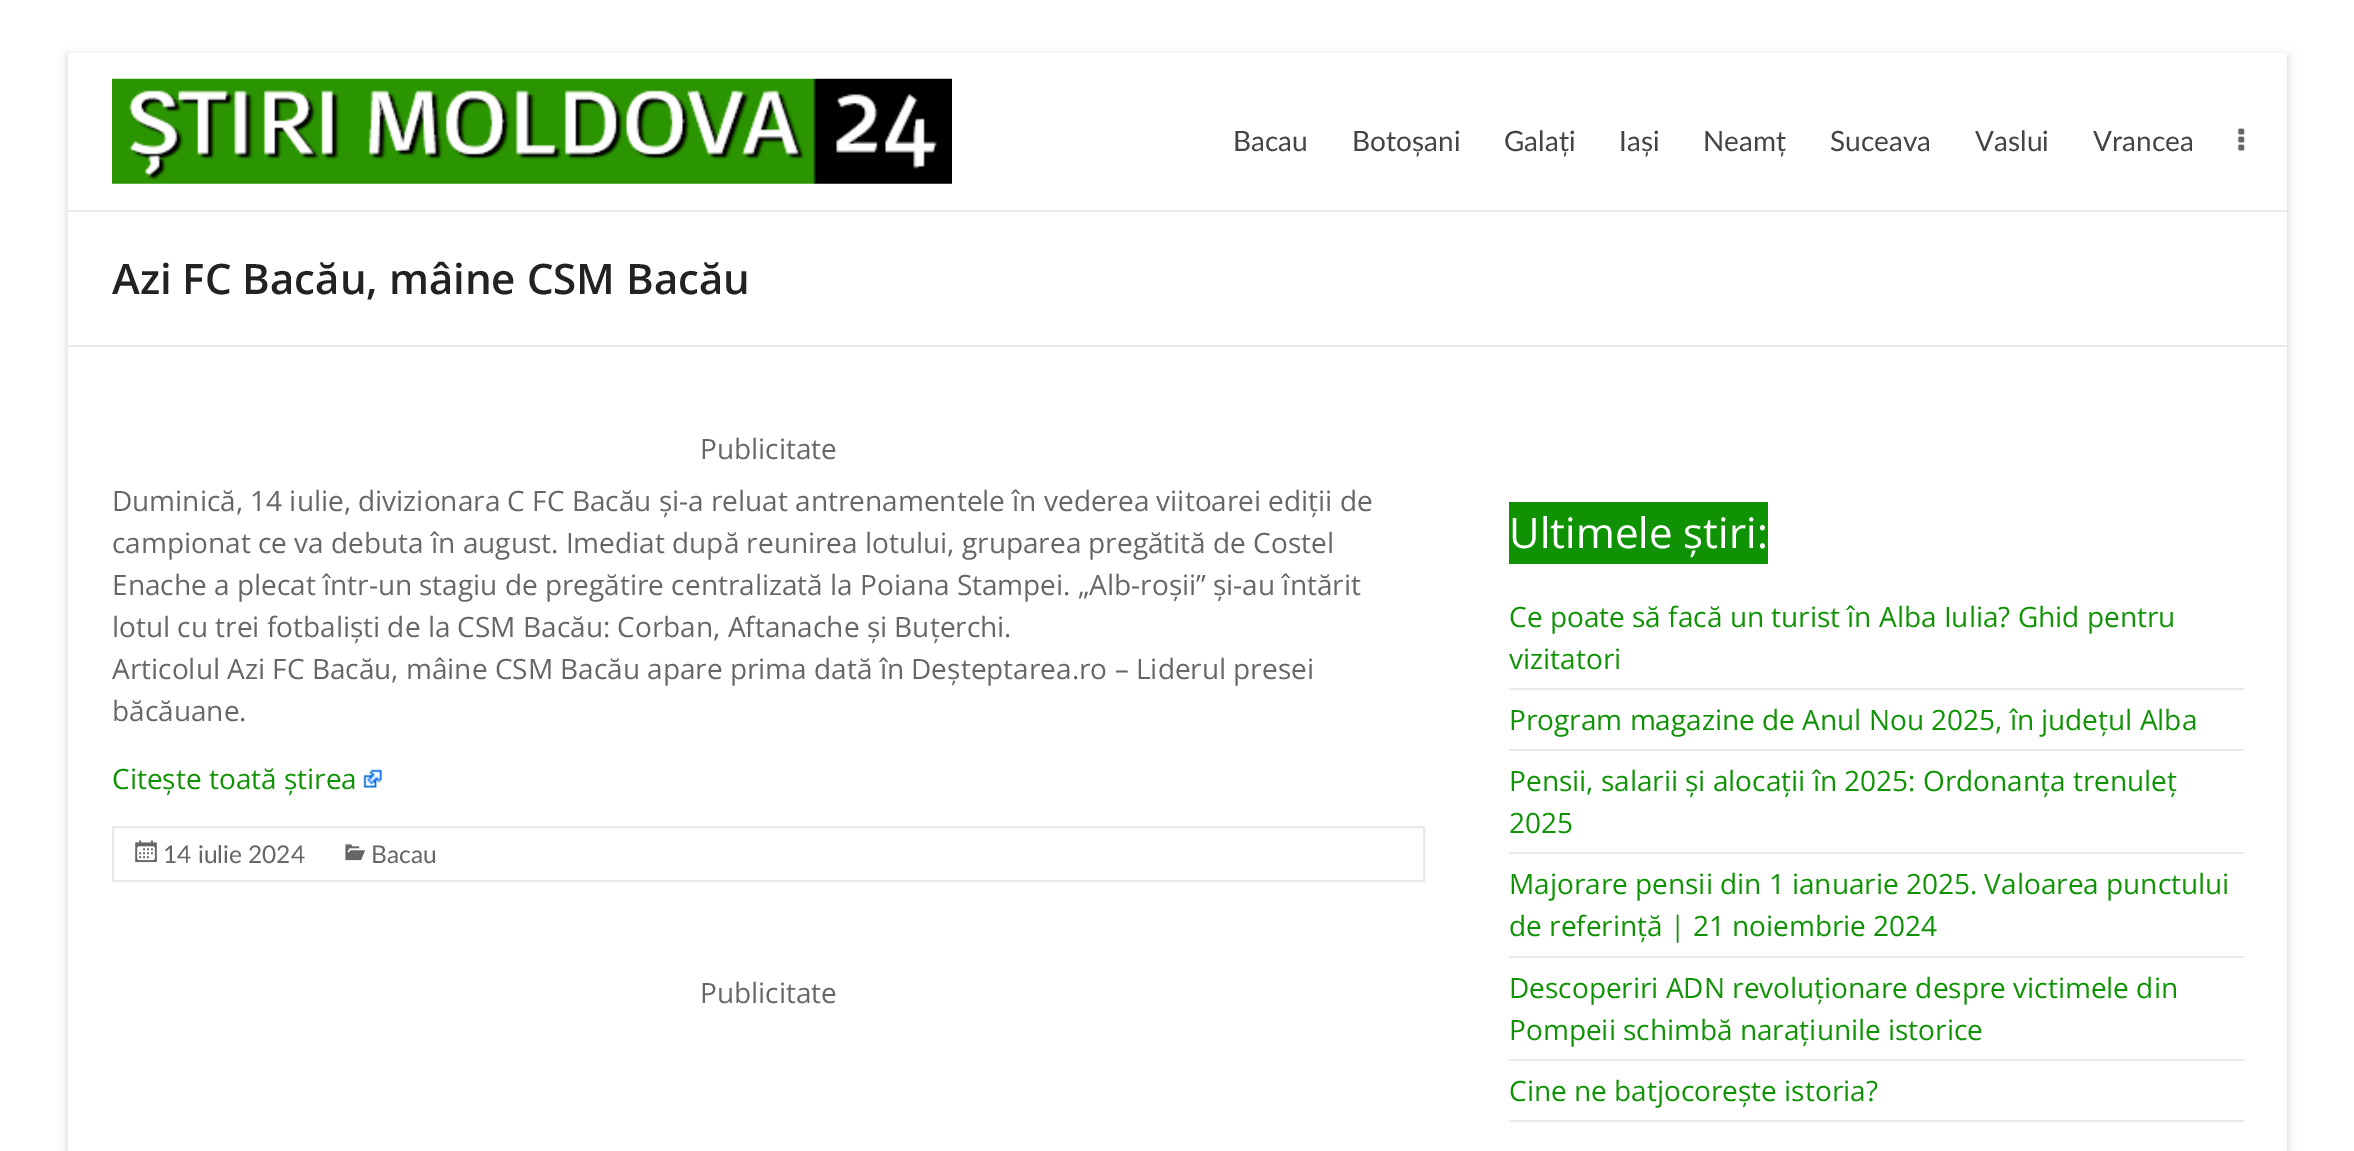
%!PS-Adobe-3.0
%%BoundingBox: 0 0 2354 1151
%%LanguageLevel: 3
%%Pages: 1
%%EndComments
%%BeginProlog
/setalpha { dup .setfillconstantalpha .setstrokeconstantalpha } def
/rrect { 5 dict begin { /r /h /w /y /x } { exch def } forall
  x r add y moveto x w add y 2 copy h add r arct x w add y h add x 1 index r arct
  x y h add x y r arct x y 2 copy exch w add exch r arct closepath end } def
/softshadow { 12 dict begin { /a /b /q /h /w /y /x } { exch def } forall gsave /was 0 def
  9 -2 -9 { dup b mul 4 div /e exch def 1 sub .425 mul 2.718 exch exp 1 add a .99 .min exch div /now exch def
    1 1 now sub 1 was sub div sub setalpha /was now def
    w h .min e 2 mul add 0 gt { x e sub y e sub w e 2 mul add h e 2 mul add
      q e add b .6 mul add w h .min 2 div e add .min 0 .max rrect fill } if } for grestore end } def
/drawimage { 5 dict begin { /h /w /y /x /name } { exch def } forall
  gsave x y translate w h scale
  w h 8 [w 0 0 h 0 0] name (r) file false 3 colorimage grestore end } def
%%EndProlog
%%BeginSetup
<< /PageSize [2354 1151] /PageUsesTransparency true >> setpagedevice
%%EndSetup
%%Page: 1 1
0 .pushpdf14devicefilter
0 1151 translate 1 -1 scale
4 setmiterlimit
1 setgray
0 0 2354 1151 rectfill
0.392 setgray
68 56 2219 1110 0 5 0.3 softshadow
1 setgray
68 53 2219 1098 rectfill
0.918 setgray
68 210 2219 2 rectfill
(images/1.raw) 112 78 840 106 drawimage
(images/2.raw) 2238 128 7 23 drawimage
68 345 2219 2 rectfill
(images/3.raw) 363 769 19 19 drawimage
2 setlinewidth
113 827 1311 54 rectstroke
(images/4.raw) 135 840 22 23 drawimage
(images/5.raw) 345 844 20 17 drawimage
0.059 0.576 0.02 setrgbcolor
1509 502 259 62 rectfill
0.918 setgray
1509 688 735 2 rectfill
1509 749 735 2 rectfill
1509 852 735 2 rectfill
1509 956 735 2 rectfill
1509 1059 735 2 rectfill
1509 1120 735 2 rectfill
/Lato-Regular [28 0 0 -28 0 0] selectfont
0.267 setgray
1233 151 moveto (Bacau) show
1352 151 moveto (Botoșani) show
1504 151 moveto (Galați) show
1619 151 moveto (Iași) show
1703 151 moveto (Neamț) show
1830 151 moveto (Suceava) show
1975 151 moveto (Vaslui) show
2093 151 moveto (Vrancea) show
/OpenSans-SemiBold [42 0 0 -42 0 0] selectfont
0.133 setgray
112 294 moveto (Azi FC Bacău, mâine CSM Bacău) show
/OpenSans-Regular [28 0 0 -28 0 0] selectfont
0.4 setgray
700 459 moveto (Publicitate) show
112 511 moveto (Duminică, 14 iulie, divizionara C FC Bacău și-a reluat antrenamentele în vederea viitoarei ediții de) show
112 553 moveto (campionat ce va debuta în august. Imediat după reunirea lotului, gruparea pregătită de Costel) show
112 595 moveto (Enache a plecat într-un stagiu de pregătire centralizată la Poiana Stampei. „Alb-roșii” și-au întărit) show
112 637 moveto (lotul cu trei fotbaliști de la CSM Bacău: Corban, Aftanache și Buțerchi.) show
112 679 moveto (Articolul Azi FC Bacău, mâine CSM Bacău apare prima dată în Deșteptarea.ro – Liderul presei) show
112 721 moveto (băcăuane.) show
0.059 0.576 0.02 setrgbcolor
112 789 moveto (Citește toată știrea) show
/Lato-Regular [24.5 0 0 -24.5 0 0] selectfont
0.4 setgray
163 863 moveto (14 iulie 2024) show
371 863 moveto (Bacau) show
/OpenSans-Regular [28 0 0 -28 0 0] selectfont
700 1003 moveto (Publicitate) show
/OpenSans-Regular [42 0 0 -42 0 0] selectfont
1 setgray
1509 548 moveto (Ultimele știri:) show
/OpenSans-Regular [28 0 0 -28 0 0] selectfont
0.059 0.576 0.02 setrgbcolor
1509 627 moveto (Ce poate să facă un turist în Alba Iulia? Ghid pentru) show
1509 669 moveto (vizitatori) show
1509 730 moveto (Program magazine de Anul Nou 2025, în județul Alba) show
1509 791 moveto (Pensii, salarii și alocații în 2025: Ordonanța trenuleț) show
1509 833 moveto (2025) show
1509 894 moveto (Majorare pensii din 1 ianuarie 2025. Valoarea punctului) show
1509 936 moveto (de referință | 21 noiembrie 2024) show
1509 998 moveto (Descoperiri ADN revoluționare despre victimele din) show
1509 1040 moveto (Pompeii schimbă narațiunile istorice) show
1509 1101 moveto (Cine ne batjocorește istoria?) show
.poppdf14devicefilter showpage
%%EOF
